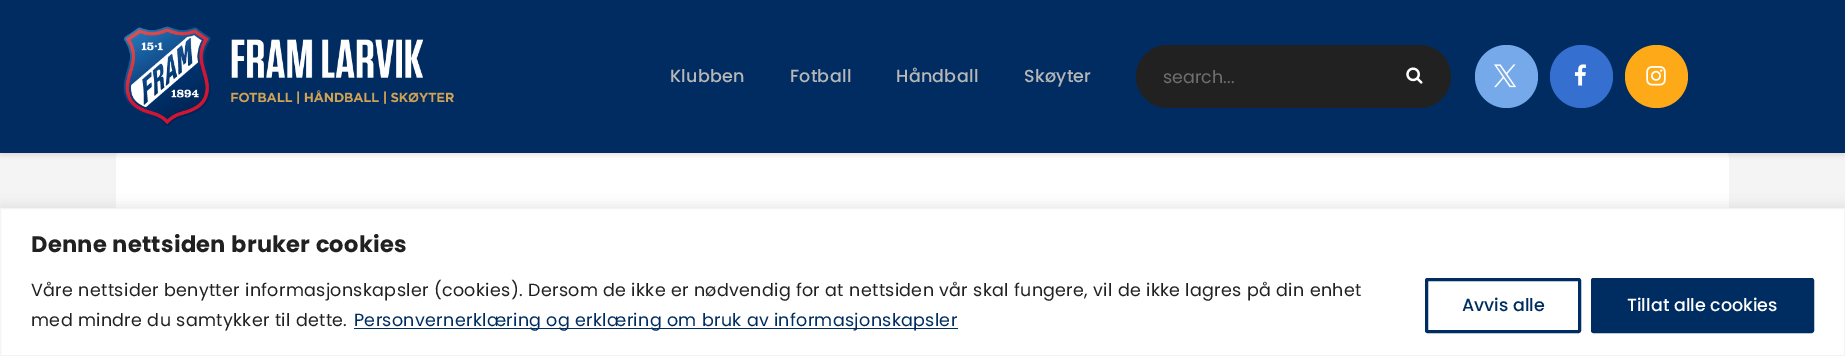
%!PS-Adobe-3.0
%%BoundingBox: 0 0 1845 356
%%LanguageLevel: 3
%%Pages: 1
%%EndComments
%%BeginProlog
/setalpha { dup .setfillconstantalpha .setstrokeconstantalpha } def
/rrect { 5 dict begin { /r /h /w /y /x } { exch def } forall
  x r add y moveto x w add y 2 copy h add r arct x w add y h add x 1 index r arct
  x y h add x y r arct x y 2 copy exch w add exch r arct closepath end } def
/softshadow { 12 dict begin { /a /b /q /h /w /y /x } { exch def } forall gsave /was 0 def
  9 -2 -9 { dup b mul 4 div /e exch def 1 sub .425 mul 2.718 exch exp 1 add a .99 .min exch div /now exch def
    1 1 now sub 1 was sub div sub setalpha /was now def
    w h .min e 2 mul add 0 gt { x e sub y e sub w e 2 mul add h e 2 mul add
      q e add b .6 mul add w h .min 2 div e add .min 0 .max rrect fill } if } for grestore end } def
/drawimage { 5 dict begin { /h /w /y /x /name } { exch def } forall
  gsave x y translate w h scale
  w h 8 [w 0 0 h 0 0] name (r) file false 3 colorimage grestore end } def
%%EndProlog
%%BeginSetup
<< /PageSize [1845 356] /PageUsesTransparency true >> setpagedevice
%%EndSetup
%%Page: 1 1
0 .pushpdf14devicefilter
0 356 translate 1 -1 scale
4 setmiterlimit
0.957 setgray
0 0 1845 356 rectfill
1 setgray
116 153 1613 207 4 rrect fill
0 setgray
0 4 1845 152 0 2 0.08 softshadow
0 0.173 0.38 setrgbcolor
0 0 1845 153 rectfill
(images/1.raw) 123 26 331 100 drawimage
0.129 setgray
1136 45 315 63 31.5 rrect fill
(images/2.raw) 1406 67 17 17 drawimage
0.463 0.663 0.918 setrgbcolor
newpath 1506.5 76.5 31.5 0 360 arc closepath fill
(images/3.raw) 1494 64 22 24 drawimage
0.208 0.435 0.812 setrgbcolor
newpath 1581.5 76.5 31.5 0 360 arc closepath fill
(images/4.raw) 1574 64 12 22 drawimage
0.996 0.663 0.09 setrgbcolor
newpath 1656.5 76.5 31.5 0 360 arc closepath fill
(images/5.raw) 1646 66 20 20 drawimage
0.675 0.671 0.671 setrgbcolor
0 206 1845 149 0 6 0.3 softshadow
1 setgray
newpath 0.5 208.5 moveto 1844.5 208.5 lineto 1844.5 355.5 lineto 0.5 355.5 lineto closepath gsave fill grestore
0.957 setgray
stroke
0 0.176 0.38 setrgbcolor
354 328 604 1 rectfill
3 setlinewidth
1426.5 279.5 153 52 1 rrect stroke
1592.5 279.5 220 52 1 rrect gsave fill grestore
stroke
/Poppins-Medium [17.5 0 0 -17.5 0 0] selectfont
0.718 setgray
670 82 moveto 0.25 0 (Klubben) ashow
790 82 moveto 0.25 0 (Fotball) ashow
896 82 moveto 0.25 0 (Håndball) ashow
1024 82 moveto 0.25 0 (Skøyter) ashow
/Poppins-Regular [17.5 0 0 -17.5 0 0] selectfont
0.435 setgray
1163 83 moveto (search...) show
/Poppins-Bold [22.5 0 0 -22.5 0 0] selectfont
0.129 setgray
31 252 moveto 0.33 0 (Denne nettsiden bruker cookies) ashow
/Poppins-Regular [17.5 0 0 -17.5 0 0] selectfont
31 296 moveto 0.33 0 (Våre nettsider benytter informasjonskapsler \(cookies\). Dersom de ikke er nødvendig for at nettsiden vår skal fungere, vil de ikke lagres på din enhet) ashow
31 326 moveto 0.33 0 (med mindre du samtykker til dette.) ashow
0 0.176 0.38 setrgbcolor
354 326 moveto 0.33 0 (Personvernerklæring og erklæring om bruk av informasjonskapsler) ashow
/Poppins-Medium [17.5 0 0 -17.5 0 0] selectfont
1462 311 moveto (Avvis alle) show
1 setgray
1627 311 moveto (Tillat alle cookies) show
.poppdf14devicefilter showpage
%%EOF
